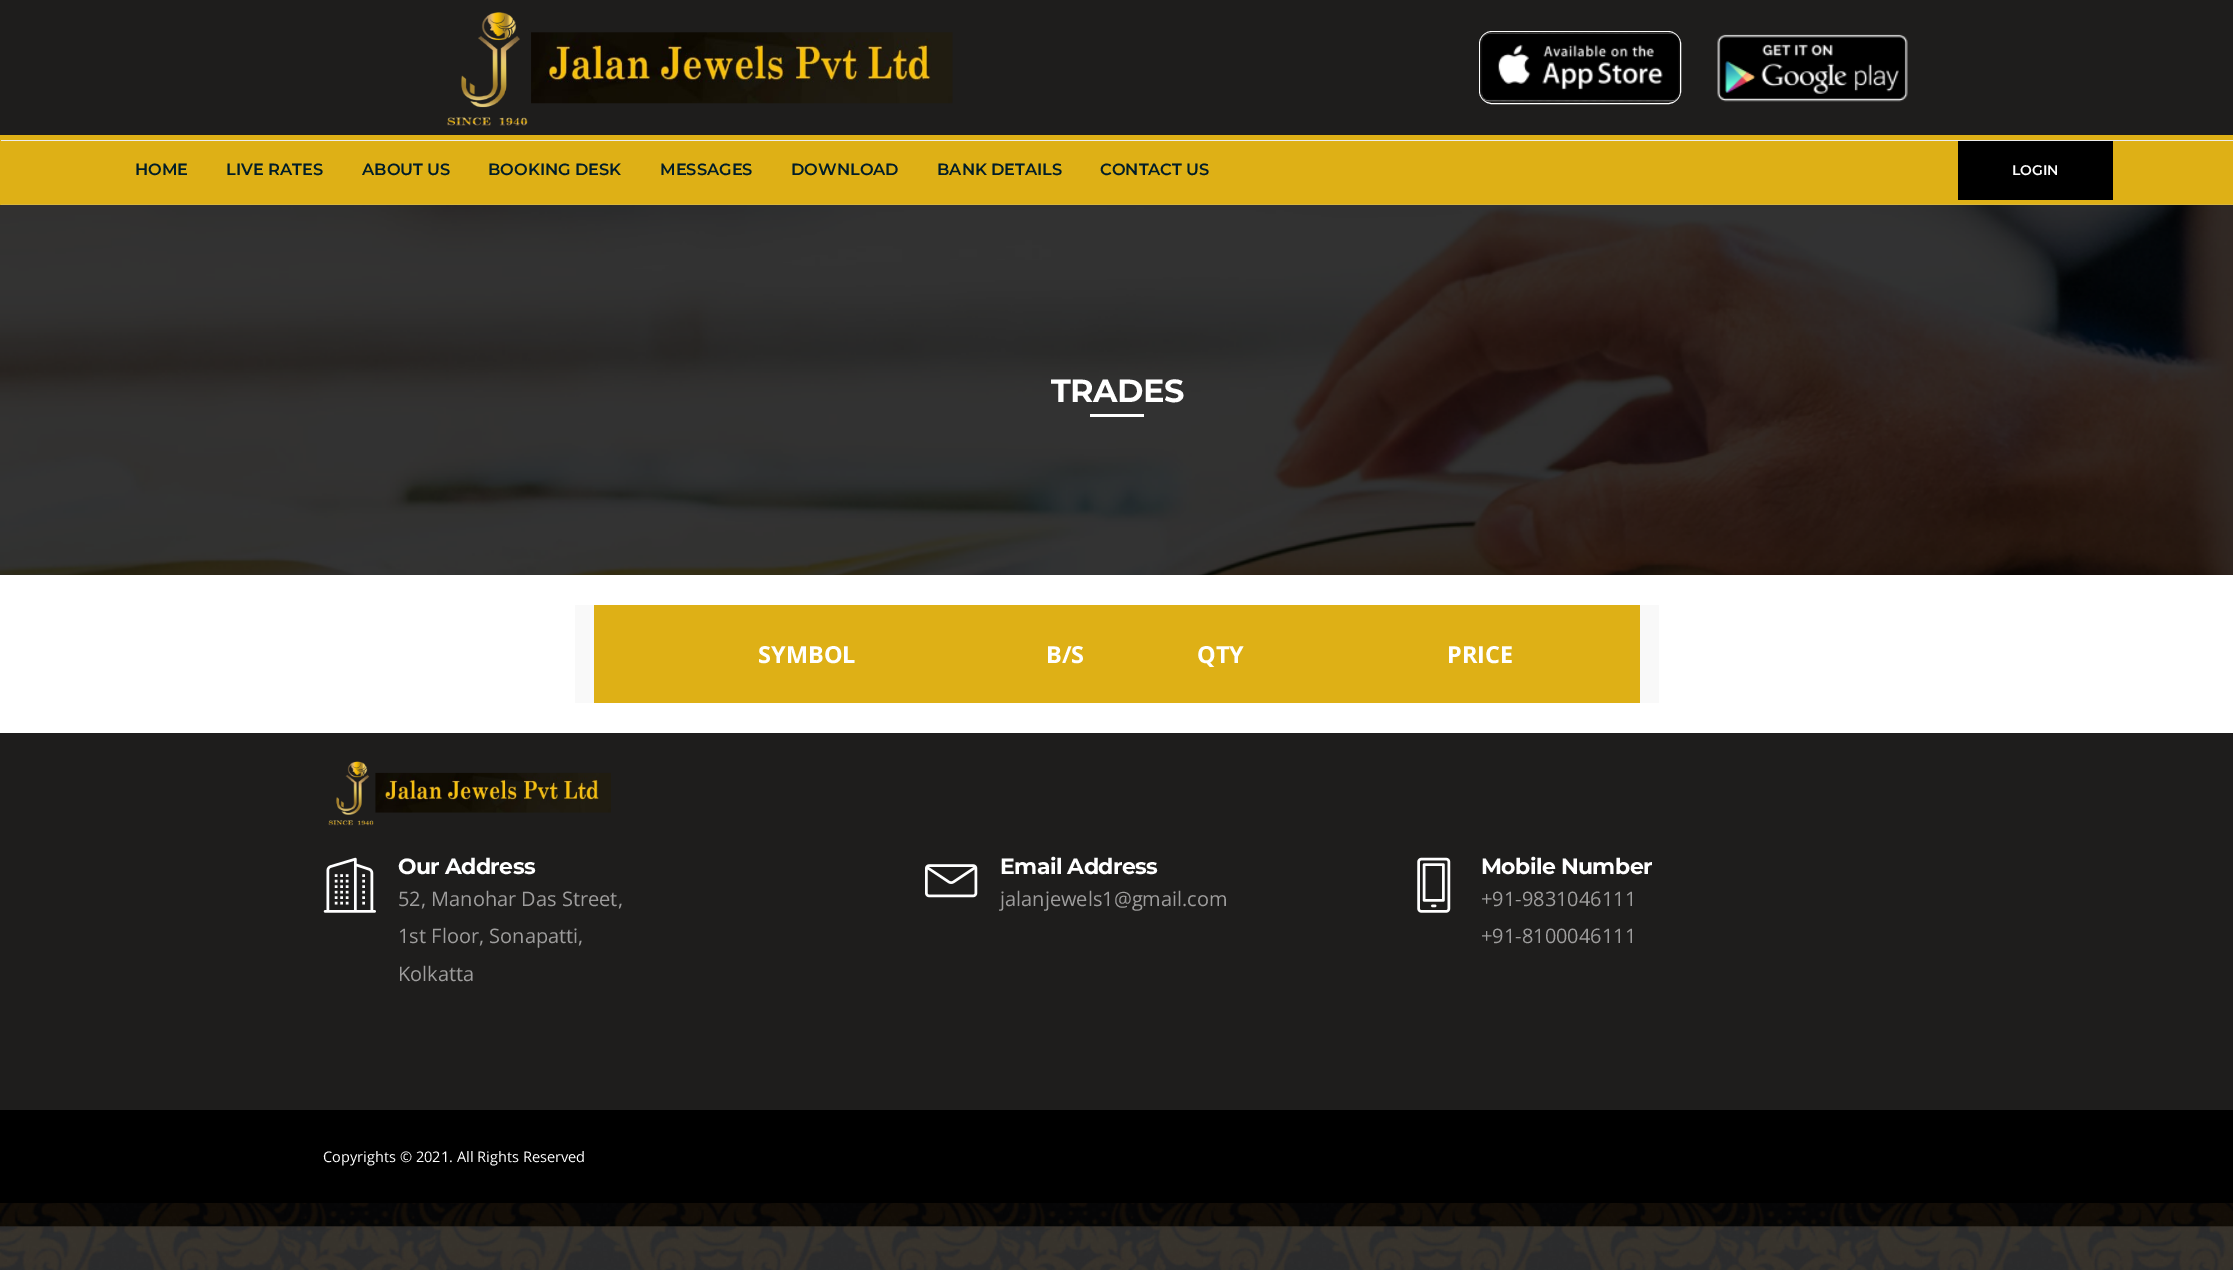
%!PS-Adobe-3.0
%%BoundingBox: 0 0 2233 1270
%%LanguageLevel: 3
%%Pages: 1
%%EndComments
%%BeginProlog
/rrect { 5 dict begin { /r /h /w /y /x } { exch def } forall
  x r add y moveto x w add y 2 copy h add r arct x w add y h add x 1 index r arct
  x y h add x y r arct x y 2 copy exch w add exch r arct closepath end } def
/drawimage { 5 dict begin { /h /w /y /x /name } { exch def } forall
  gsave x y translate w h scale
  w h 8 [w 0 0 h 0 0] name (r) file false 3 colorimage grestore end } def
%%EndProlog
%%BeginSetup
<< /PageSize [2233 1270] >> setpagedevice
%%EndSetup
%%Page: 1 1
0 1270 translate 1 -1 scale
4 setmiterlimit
1 setgray
0 0 2233 1270 rectfill
(images/1.raw) 0 1203 2233 67 drawimage
0.118 0.114 0.11 setrgbcolor
0 0 2233 135 rectfill
(images/2.raw) 447 12 506 114 drawimage
1 setgray
1479.5 31.5 201 72 12.5 rrect stroke
(images/3.raw) 1480 32 200 70 drawimage
(images/4.raw) 1717 34 191 68 drawimage
0.871 0.69 0.086 setrgbcolor
0 135 2233 70 rectfill
0.929 0.929 0.933 setrgbcolor
1 140 2232 1 rectfill
0 setgray
1958 141 155 59 rectfill
0.855 0.714 0.227 setrgbcolor
1 204 2232 1 rectfill
(images/5.raw) 0 205 2233 370 drawimage
1 setgray
1090 414 54 3 rectfill
0.976 setgray
575 605 1084 98 rectfill
0.871 0.69 0.086 setrgbcolor
594 605 1046 98 rectfill
0.118 0.114 0.11 setrgbcolor
0 733 2233 377 rectfill
(images/6.raw) 328 761 283 65 drawimage
(images/7.raw) 323 857 53 56 drawimage
(images/8.raw) 925 864 53 34 drawimage
(images/9.raw) 1417 857 34 56 drawimage
0 setgray
0 1110 2233 93 rectfill
/Montserrat-SemiBold [16.25 0 0 -16.25 0 0] selectfont
0.004 0.114 0.157 setrgbcolor
135 175 moveto (HOME) show
226 175 moveto (LIVE RATES) show
362 175 moveto (ABOUT US) show
488 175 moveto (BOOKING DESK) show
660 175 moveto (MESSAGES) show
791 175 moveto (DOWNLOAD) show
937 175 moveto (BANK DETAILS) show
1100 175 moveto (CONTACT US) show
/Montserrat-SemiBold [14 0 0 -14 0 0] selectfont
1 setgray
2012 175 moveto (LOGIN) show
/Montserrat-Bold [32 0 0 -32 0 0] selectfont
1051 402 moveto -0.6 0 (TRADES) ashow
/OpenSans-Bold [23.5 0 0 -23.5 0 0] selectfont
758 663 moveto (SYMBOL) show
1046 663 moveto (B/S) show
1197 663 moveto (QTY) show
1447 663 moveto (PRICE) show
/Montserrat-Bold [22 0 0 -22 0 0] selectfont
398 874 moveto -0.6 0 (Our Address) ashow
/OpenSans-Regular [20 0 0 -20 0 0] selectfont
0.62 0.616 0.616 setrgbcolor
398 906 moveto (52, Manohar Das Street,) show
398 943 moveto (1st Floor, Sonapatti,) show
398 981 moveto (Kolkatta) show
/Montserrat-Bold [22 0 0 -22 0 0] selectfont
1 setgray
1000 874 moveto -0.6 0 (Email Address) ashow
/OpenSans-Regular [20 0 0 -20 0 0] selectfont
0.62 0.616 0.616 setrgbcolor
1000 906 moveto (jalanjewels1@gmail.com) show
/Montserrat-Bold [22 0 0 -22 0 0] selectfont
1 setgray
1481 874 moveto -0.6 0 (Mobile Number) ashow
/OpenSans-Regular [20 0 0 -20 0 0] selectfont
0.62 0.616 0.616 setrgbcolor
1481 906 moveto (+91-9831046111) show
1481 943 moveto (+91-8100046111) show
/OpenSans-Regular [14.6 0 0 -14.6 0 0] selectfont
1 setgray
323 1162 moveto (Copyrights © 2021. All Rights Reserved) show
showpage
%%EOF
